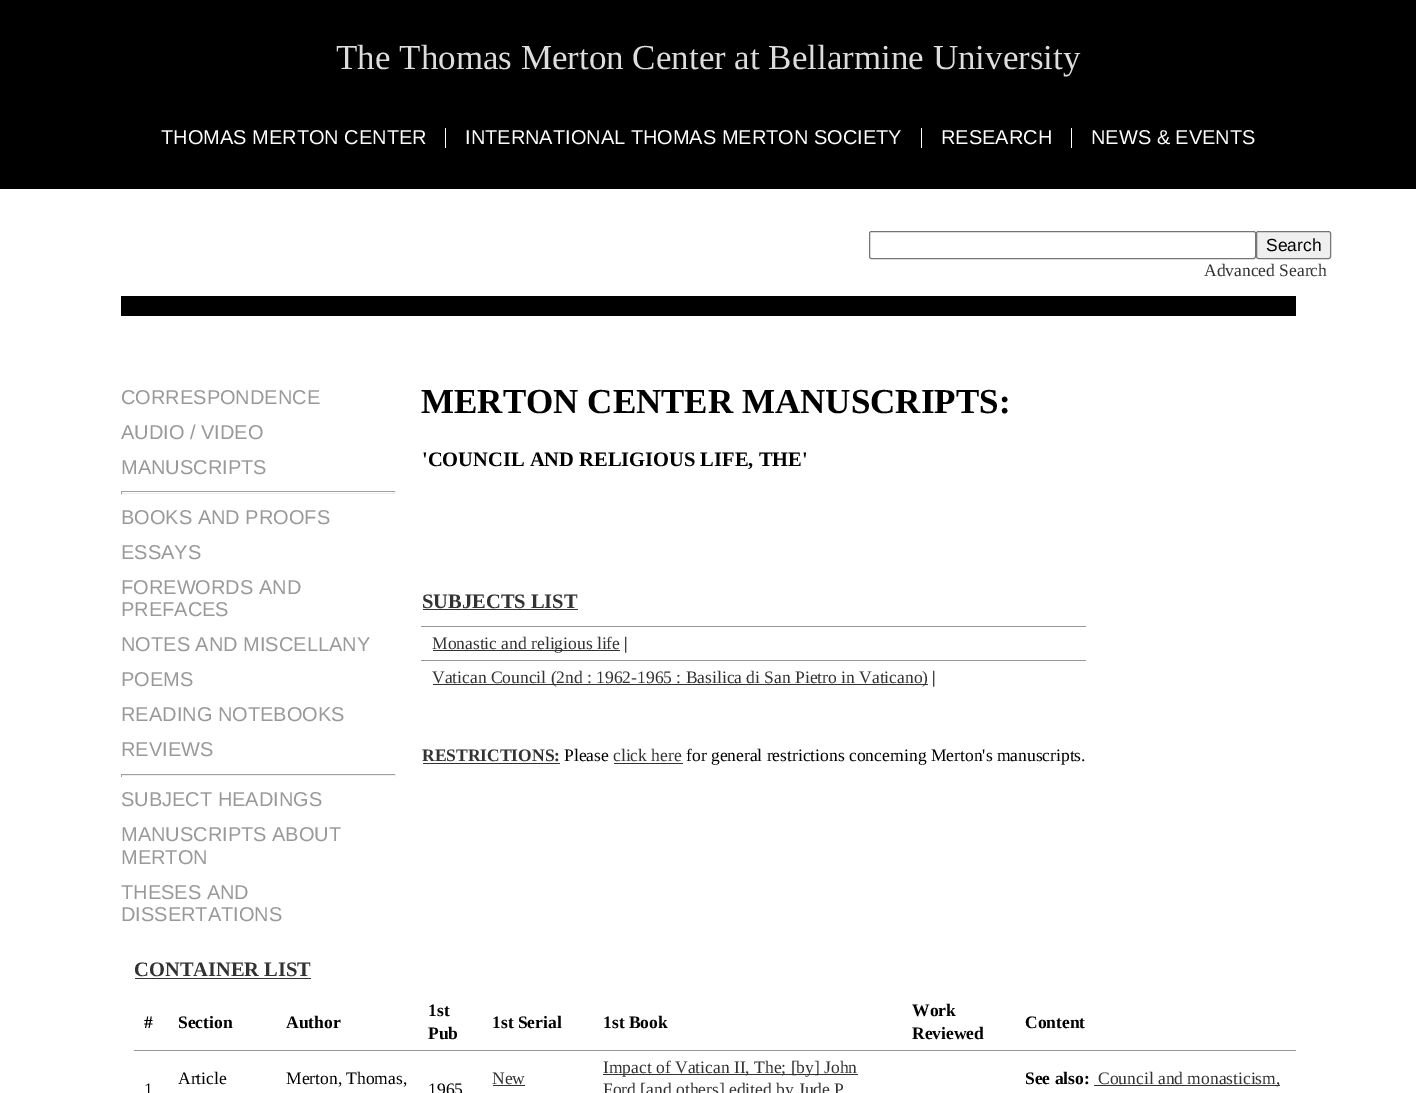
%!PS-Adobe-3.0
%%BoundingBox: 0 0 1416 1093
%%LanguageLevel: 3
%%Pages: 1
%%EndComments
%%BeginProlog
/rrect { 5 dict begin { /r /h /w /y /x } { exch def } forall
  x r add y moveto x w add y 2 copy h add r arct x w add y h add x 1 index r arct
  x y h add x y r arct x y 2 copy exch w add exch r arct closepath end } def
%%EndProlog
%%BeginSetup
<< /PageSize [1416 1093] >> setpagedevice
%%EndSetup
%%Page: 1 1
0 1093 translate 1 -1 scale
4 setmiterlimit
1 setgray
0 0 1416 1093 rectfill
0 setgray
0 0 1416 189 rectfill
1 setgray
445 128 1 20 rectfill
921 128 1 20 rectfill
1071 128 1 20 rectfill
0.463 setgray
869.5 231.5 386 27 2 rrect stroke
0.937 setgray
1256.5 231.5 74 27 2 rrect gsave fill grestore
0.463 setgray
stroke
0 setgray
121 296 1175 20 rectfill
0.624 setgray
121 491 275 1 rectfill
0.933 setgray
395 491 1 3 rectfill
121 493 275 1 rectfill
0.624 setgray
121 491 1 3 rectfill
121 774 275 1 rectfill
0.933 setgray
395 774 1 3 rectfill
121 775 275 1 rectfill
0.624 setgray
121 774 1 3 rectfill
0.2 setgray
423 609 155 1 rectfill
0.6 setgray
421 626 665 1 rectfill
0.2 setgray
433 650 187 1 rectfill
0.6 setgray
421 660 665 1 rectfill
0.2 setgray
433 684 495 1 rectfill
423 763 137 1 rectfill
614 763 69 1 rectfill
135 978 176 1 rectfill
0.6 setgray
134 1050 1162 1 rectfill
0.2 setgray
493 1085 32 1 rectfill
603 1074 255 1 rectfill
1094 1085 186 1 rectfill
/LiberationSerif-Regular [35 0 0 -35 0 0] selectfont
0.867 setgray
336 69 moveto (The Thomas Merton Center at Bellarmine University) show
/LiberationSans-Regular [20 0 0 -20 0 0] selectfont
1 setgray
161 144 moveto (THOMAS MERTON CENTER) show
465 144 moveto (INTERNATIONAL THOMAS MERTON SOCIETY) show
941 144 moveto (RESEARCH) show
1091 144 moveto (NEWS & EVENTS) show
/LiberationSans-Regular [17.5 0 0 -17.5 0 0] selectfont
0 setgray
1266 251 moveto (Search) show
/LiberationSerif-Regular [17.5 0 0 -17.5 0 0] selectfont
0.2 setgray
1204 276 moveto (Advanced Search) show
/LiberationSans-Regular [20 0 0 -20 0 0] selectfont
0.6 setgray
121 404 moveto (CORRESPONDENCE) show
121 439 moveto (AUDIO / VIDEO) show
121 474 moveto (MANUSCRIPTS) show
121 524 moveto (BOOKS AND PROOFS) show
121 559 moveto (ESSAYS) show
121 594 moveto (FOREWORDS AND) show
121 616 moveto (PREFACES) show
121 651 moveto (NOTES AND MISCELLANY) show
121 686 moveto (POEMS) show
121 721 moveto (READING NOTEBOOKS) show
121 756 moveto (REVIEWS) show
121 806 moveto (SUBJECT HEADINGS) show
121 841 moveto (MANUSCRIPTS ABOUT) show
121 864 moveto (MERTON) show
121 899 moveto (THESES AND) show
121 921 moveto (DISSERTATIONS) show
/LiberationSerif-Bold [35 0 0 -35 0 0] selectfont
0 setgray
421 413 moveto (MERTON CENTER MANUSCRIPTS:) show
/LiberationSerif-Bold [20.5 0 0 -20.5 0 0] selectfont
422 466 moveto ('COUNCIL AND RELIGIOUS LIFE, THE') show
0.2 setgray
422 608 moveto (SUBJECTS LIST) show
/LiberationSerif-Regular [17.5 0 0 -17.5 0 0] selectfont
432 649 moveto (Monastic and religious life) show
0 setgray
624 649 moveto (|) show
0.2 setgray
432 683 moveto (Vatican Council \(2nd : 1962-1965 : Basilica di San Pietro in Vaticano\)) show
0 setgray
932 683 moveto (|) show
/LiberationSerif-Bold [17.5 0 0 -17.5 0 0] selectfont
0.2 setgray
422 761 moveto (RESTRICTIONS:) show
/LiberationSerif-Regular [17.5 0 0 -17.5 0 0] selectfont
0 setgray
564 761 moveto (Please) show
0.2 setgray
613 761 moveto (click here) show
0 setgray
686 761 moveto (for general restrictions concerning Merton's manuscripts.) show
/LiberationSerif-Bold [20.5 0 0 -20.5 0 0] selectfont
0.2 setgray
134 976 moveto (CONTAINER LIST) show
/LiberationSerif-Bold [17.5 0 0 -17.5 0 0] selectfont
0 setgray
144 1028 moveto (#) show
178 1028 moveto (Section) show
286 1028 moveto (Author) show
428 1016 moveto (1st) show
428 1039 moveto (Pub) show
492 1028 moveto (1st Serial) show
603 1028 moveto (1st Book) show
912 1016 moveto (Work) show
912 1039 moveto (Reviewed) show
1025 1028 moveto (Content) show
/LiberationSerif-Regular [17.5 0 0 -17.5 0 0] selectfont
178 1084 moveto (Article) show
286 1084 moveto (Merton, Thomas,) show
0.2 setgray
492 1084 moveto (New) show
603 1073 moveto (Impact of Vatican II, The; [by] John) show
603 1095 moveto (Ford [and others] edited by Jude P) show
/LiberationSerif-Bold [17.5 0 0 -17.5 0 0] selectfont
0 setgray
1025 1084 moveto (See also:) show
/LiberationSerif-Regular [17.5 0 0 -17.5 0 0] selectfont
0.2 setgray
1098 1084 moveto (Council and monasticism,) show
0 setgray
144 1095 moveto (1) show
428 1095 moveto (1965) show
showpage
%%EOF
